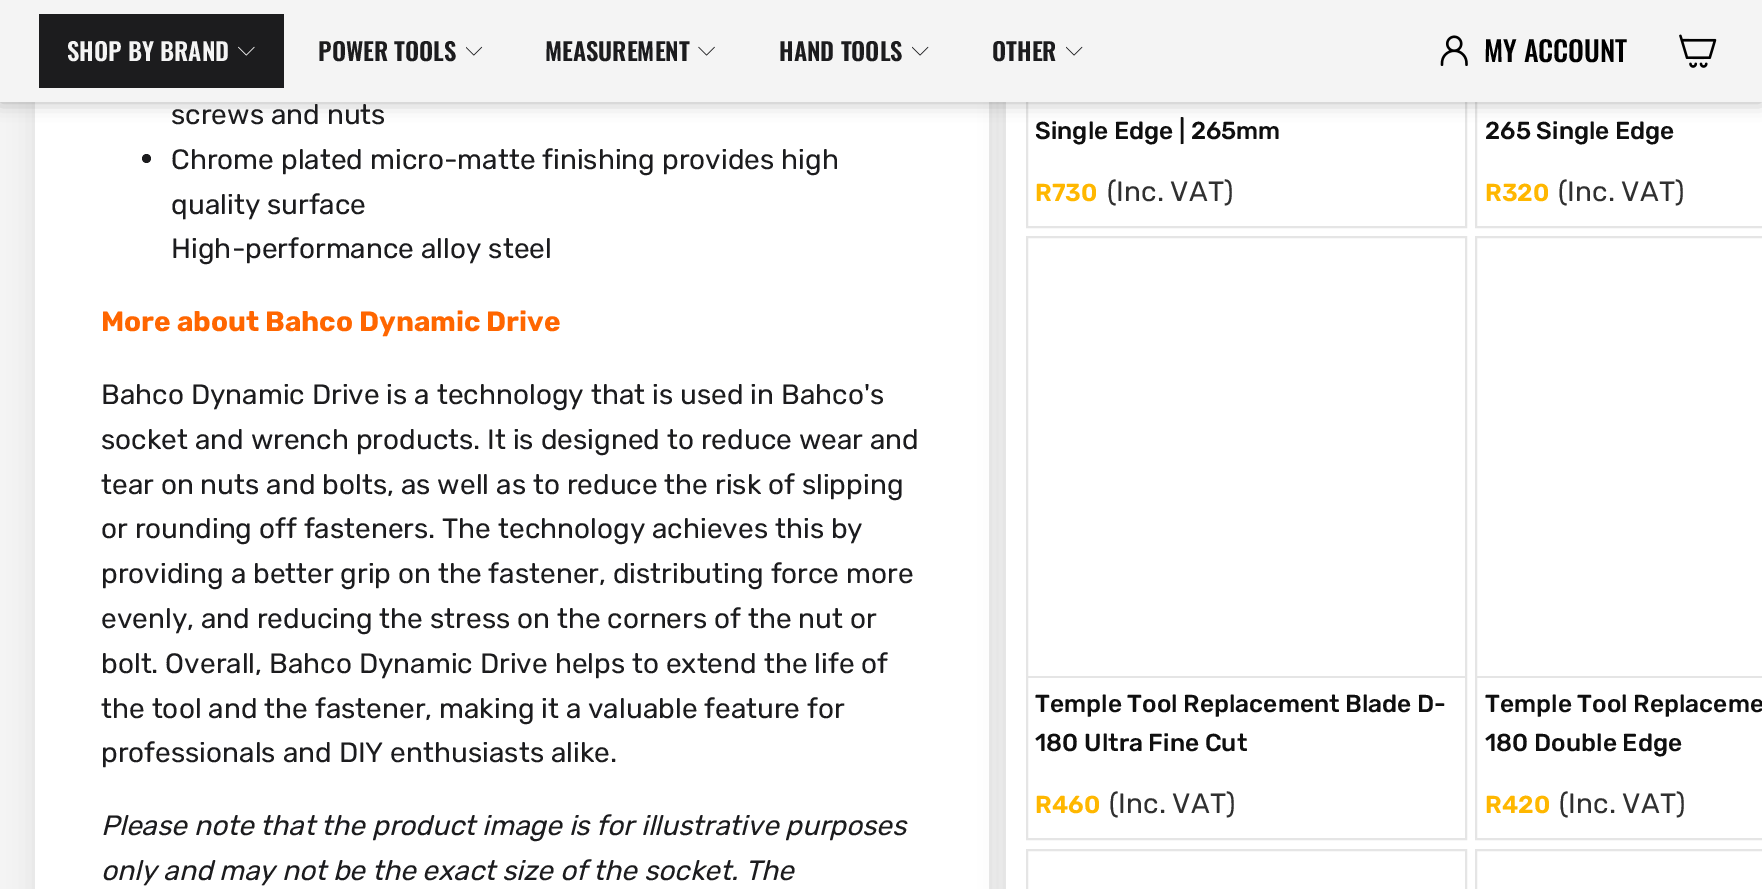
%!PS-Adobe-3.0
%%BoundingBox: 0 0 1762 889
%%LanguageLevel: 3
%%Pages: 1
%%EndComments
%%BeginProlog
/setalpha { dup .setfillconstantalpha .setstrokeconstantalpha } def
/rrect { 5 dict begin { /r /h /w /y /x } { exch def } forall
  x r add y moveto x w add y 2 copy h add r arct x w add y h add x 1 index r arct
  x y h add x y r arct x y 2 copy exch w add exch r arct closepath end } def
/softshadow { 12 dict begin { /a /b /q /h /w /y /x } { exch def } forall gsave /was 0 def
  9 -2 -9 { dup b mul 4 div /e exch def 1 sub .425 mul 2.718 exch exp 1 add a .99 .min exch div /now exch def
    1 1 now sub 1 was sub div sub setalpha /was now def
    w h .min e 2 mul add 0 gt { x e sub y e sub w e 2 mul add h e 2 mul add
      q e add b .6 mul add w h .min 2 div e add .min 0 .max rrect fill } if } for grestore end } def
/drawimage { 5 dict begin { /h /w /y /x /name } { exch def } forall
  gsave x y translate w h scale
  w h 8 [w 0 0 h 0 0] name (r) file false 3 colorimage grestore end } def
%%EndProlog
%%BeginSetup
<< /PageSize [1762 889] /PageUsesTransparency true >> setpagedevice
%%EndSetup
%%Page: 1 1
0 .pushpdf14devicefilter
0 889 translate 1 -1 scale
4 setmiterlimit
0.957 setgray
0 0 1762 889 rectfill
0 setgray
35 -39 954 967 0 13 0.08 softshadow
1 setgray
35 102 954 787 rectfill
0 setgray
1006 -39 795 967 0 13 0.08 softshadow
1 setgray
1006 102 756 787 rectfill
0.898 setgray
2 setlinewidth
1027 -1 439 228 rectstroke
1476 -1 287 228 rectstroke
0 setgray
0 0 1762 102 0 9 0.3 softshadow
0.957 setgray
0 0 1762 102 rectfill
0.11 0.11 0.118 setrgbcolor
39 14 245 74 rectfill
(images/1.raw) 238 46 17 10 drawimage
(images/2.raw) 466 46 17 10 drawimage
(images/3.raw) 698 46 17 10 drawimage
(images/4.raw) 912 46 17 10 drawimage
(images/4.raw) 1066 46 17 10 drawimage
(images/5.raw) 1440 35 28 31 drawimage
(images/6.raw) 1679 34 38 34 drawimage
newpath 146.5 158.5 4.5 0 360 arc closepath fill
0.898 setgray
1027 237 439 602 rectstroke
1027 676 438 2 rectfill
1476 237 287 602 rectstroke
1477 676 285 2 rectfill
1027 850 439 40 rectstroke
1476 850 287 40 rectstroke
/Oswald-SemiBold [24.5 0 0 -24.5 0 0] selectfont
0.957 setgray
67 61 moveto (SHOP BY BRAND) show
0.11 0.11 0.118 setrgbcolor
318 61 moveto (POWER TOOLS) show
545 61 moveto (MEASUREMENT) show
779 61 moveto (HAND TOOLS) show
992 61 moveto (OTHER) show
/Oswald-Medium [28 0 0 -28 0 0] selectfont
0 setgray
1484 62 moveto (MY ACCOUNT) show
/Rubik-Light [28 0 0 -28 0 0] selectfont
0.11 0.11 0.118 setrgbcolor
171 124 moveto (screws and nuts) show
171 169 moveto (Chrome plated micro-matte finishing provides high) show
171 214 moveto (quality surface) show
171 258 moveto (High-performance alloy steel) show
/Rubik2-Light [28 0 0 -28 0 0] selectfont
1 0.4 0 setrgbcolor
101 331 moveto (More about Bahco Dynamic Drive) show
/Rubik-Light [28 0 0 -28 0 0] selectfont
0.11 0.11 0.118 setrgbcolor
101 404 moveto (Bahco Dynamic Drive is a technology that is used in Bahco's) show
101 449 moveto (socket and wrench products. It is designed to reduce wear and) show
101 494 moveto (tear on nuts and bolts, as well as to reduce the risk of slipping) show
101 538 moveto (or rounding off fasteners. The technology achieves this by) show
101 583 moveto (providing a better grip on the fastener, distributing force more) show
101 628 moveto (evenly, and reducing the stress on the corners of the nut or) show
101 673 moveto (bolt. Overall, Bahco Dynamic Drive helps to extend the life of) show
101 718 moveto (the tool and the fastener, making it a valuable feature for) show
101 762 moveto (professionals and DIY enthusiasts alike.) show
/Rubik-LightItalic [28 0 0 -28 0 0] selectfont
101 835 moveto (Please note that the product image is for illustrative purposes) show
101 880 moveto (only and may not be the exact size of the socket. The) show
/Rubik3-Light [24.5 0 0 -24.5 0 0] selectfont
0.059 setgray
1035 139 moveto (Single Edge | 265mm) show
/Rubik-SemiBold [24.5 0 0 -24.5 0 0] selectfont
1 0.718 0 setrgbcolor
1035 201 moveto (R730) show
/Rubik-Light [28 0 0 -28 0 0] selectfont
0.188 setgray
1107 201 moveto (\(Inc. VAT\)) show
/Rubik3-Light [24.5 0 0 -24.5 0 0] selectfont
0.059 setgray
1485 139 moveto (265 Single Edge) show
/Rubik-SemiBold [24.5 0 0 -24.5 0 0] selectfont
1 0.718 0 setrgbcolor
1485 201 moveto (R320) show
/Rubik-Light [28 0 0 -28 0 0] selectfont
0.188 setgray
1558 201 moveto (\(Inc. VAT\)) show
/Rubik3-Light [24.5 0 0 -24.5 0 0] selectfont
0.059 setgray
1035 712 moveto (Temple Tool Replacement Blade D-) show
1035 751 moveto (180 Ultra Fine Cut) show
/Rubik-SemiBold [24.5 0 0 -24.5 0 0] selectfont
1 0.718 0 setrgbcolor
1035 813 moveto (R460) show
/Rubik-Light [28 0 0 -28 0 0] selectfont
0.188 setgray
1109 813 moveto (\(Inc. VAT\)) show
/Rubik3-Light [24.5 0 0 -24.5 0 0] selectfont
0.059 setgray
1485 712 moveto (Temple Tool Replaceme) show
1485 751 moveto (180 Double Edge) show
/Rubik-SemiBold [24.5 0 0 -24.5 0 0] selectfont
1 0.718 0 setrgbcolor
1485 813 moveto (R420) show
/Rubik-Light [28 0 0 -28 0 0] selectfont
0.188 setgray
1559 813 moveto (\(Inc. VAT\)) show
.poppdf14devicefilter showpage
%%EOF
